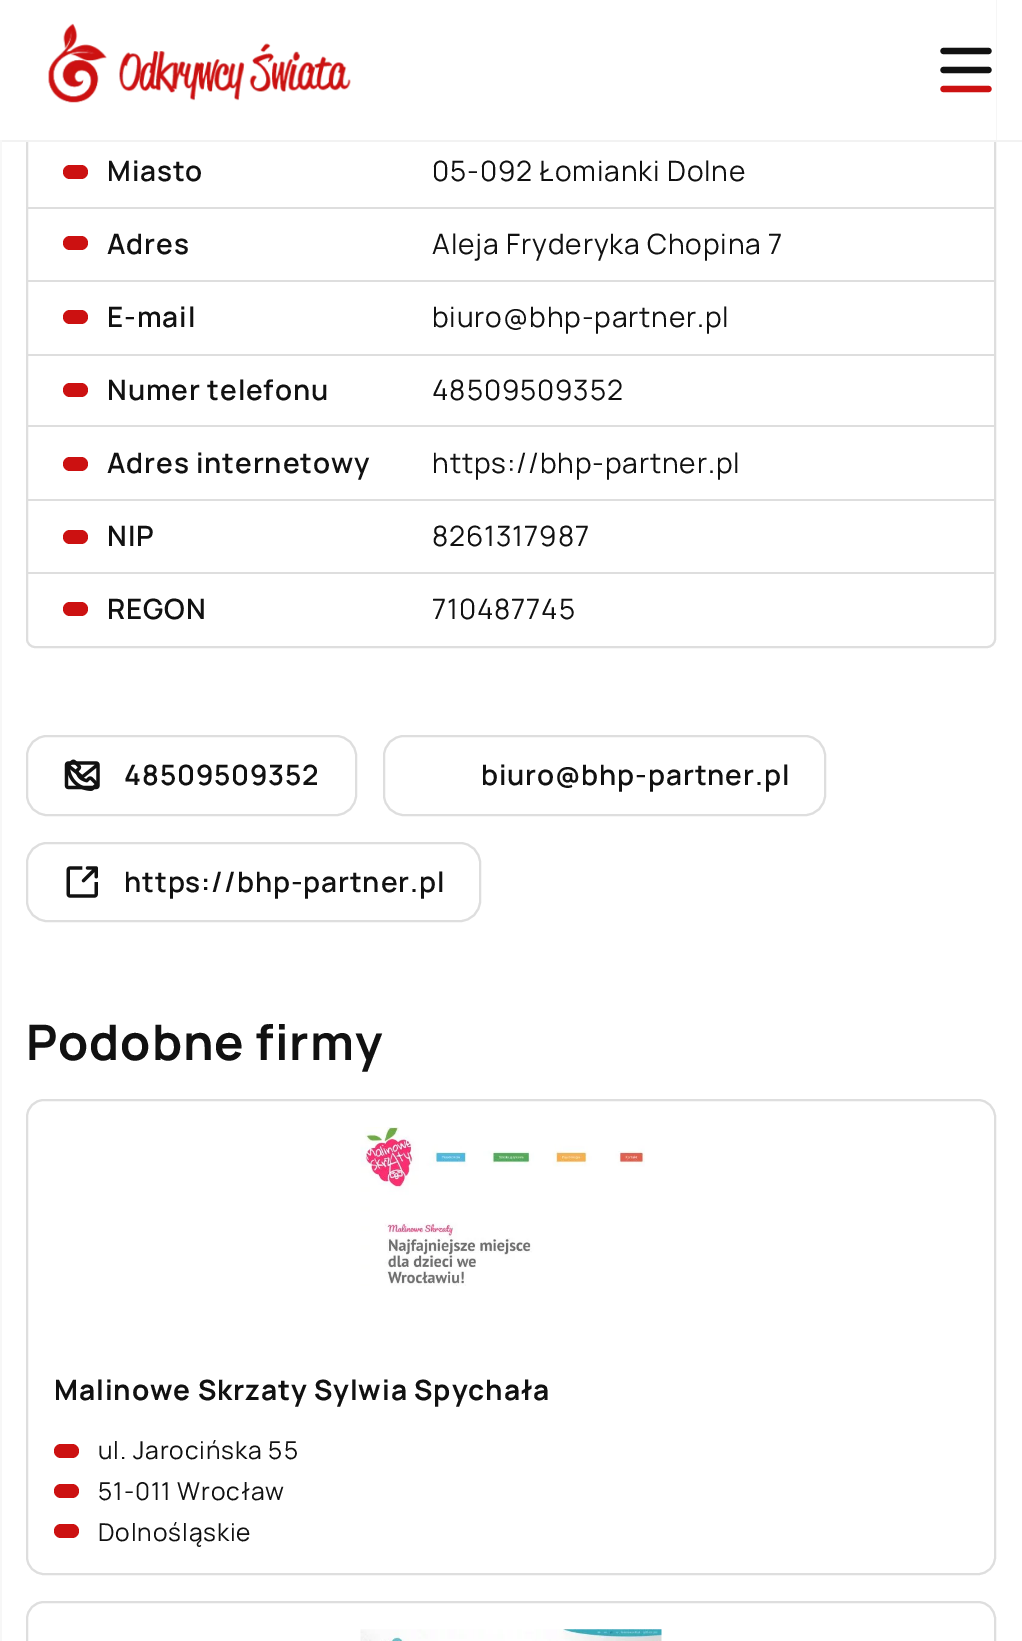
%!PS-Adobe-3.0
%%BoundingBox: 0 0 1022 1641
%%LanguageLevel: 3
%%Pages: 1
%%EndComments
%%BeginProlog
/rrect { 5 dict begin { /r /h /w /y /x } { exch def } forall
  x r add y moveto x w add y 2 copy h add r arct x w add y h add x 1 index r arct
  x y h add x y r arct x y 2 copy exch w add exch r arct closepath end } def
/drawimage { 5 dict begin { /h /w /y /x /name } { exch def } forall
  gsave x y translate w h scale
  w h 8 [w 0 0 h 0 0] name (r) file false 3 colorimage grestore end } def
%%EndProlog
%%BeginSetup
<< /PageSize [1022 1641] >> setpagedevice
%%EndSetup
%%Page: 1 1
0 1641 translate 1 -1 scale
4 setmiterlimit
1 setgray
0 0 1022 1641 rectfill
0.871 setgray
2 setlinewidth
27 -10 968 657 8 rrect stroke
1 setgray
26 0 970 140 rectfill
0.949 setgray
0 140 1022 2 rectfill
(images/1.raw) 48 23 303 80 drawimage
0.067 setgray
6.2 setlinewidth
1 setlinecap
newpath 943.5 51 moveto 988.5 51 lineto 943.5 70 moveto 988.5 70 lineto stroke
0.8 0.067 0.067 setrgbcolor
newpath 988.5 89 moveto 943.5 89 lineto stroke
0.969 setgray
0 140 2 1501 rectfill
0.871 setgray
28 207 966 2 rectfill
0.8 0.067 0.067 setrgbcolor
63 165 25 14 7 rrect fill
0.871 setgray
28 280 966 2 rectfill
0.8 0.067 0.067 setrgbcolor
63 236 25 14 7 rrect fill
0.871 setgray
28 354 966 2 rectfill
0.8 0.067 0.067 setrgbcolor
63 310 25 14 7 rrect fill
0.871 setgray
28 425 966 2 rectfill
0.8 0.067 0.067 setrgbcolor
63 383 25 14 7 rrect fill
0.871 setgray
28 499 966 2 rectfill
0.8 0.067 0.067 setrgbcolor
63 457 25 14 7 rrect fill
0.871 setgray
28 572 966 2 rectfill
0.8 0.067 0.067 setrgbcolor
63 530 25 14 7 rrect fill
63 602 25 14 7 rrect fill
(images/2.raw) 68 759 29 32 drawimage
0.871 setgray
2 setlinewidth
0 setlinecap
27 736 329 79 20 rrect stroke
(images/3.raw) 64 761 36 29 drawimage
384 736 441 79 20 rrect stroke
(images/4.raw) 66 866 32 32 drawimage
27 843 453 78 20 rrect stroke
27 1100 968 474 17 rrect stroke
(images/5.raw) 360 1127 285 159 drawimage
0.8 0.067 0.067 setrgbcolor
54 1444 25 14 7 rrect fill
54 1484 25 14 7 rrect fill
54 1524 25 14 7 rrect fill
0.871 setgray
27 1602 968 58 17 rrect stroke
(images/6.raw) 360 1629 302 12 drawimage
/Manrope-SemiBold [28 0 0 -28 0 0] selectfont
0.067 setgray
107 181 moveto 0.9 0 (Miasto) ashow
/Manrope-Regular [28 0 0 -28 0 0] selectfont
432 181 moveto 0.9 0 (05-092 Łomianki Dolne) ashow
/Manrope-SemiBold [28 0 0 -28 0 0] selectfont
107 254 moveto 0.9 0 (Adres) ashow
/Manrope-Regular [28 0 0 -28 0 0] selectfont
432 254 moveto 0.9 0 (Aleja Fryderyka Chopina 7) ashow
/Manrope-SemiBold [28 0 0 -28 0 0] selectfont
107 327 moveto 0.9 0 (E-mail) ashow
/Manrope-Regular [28 0 0 -28 0 0] selectfont
432 327 moveto 0.9 0 (biuro@bhp-partner.pl) ashow
/Manrope-SemiBold [28 0 0 -28 0 0] selectfont
107 400 moveto 0.9 0 (Numer telefonu) ashow
/Manrope-Regular [28 0 0 -28 0 0] selectfont
432 400 moveto 0.9 0 (48509509352) ashow
/Manrope-SemiBold [28 0 0 -28 0 0] selectfont
107 473 moveto 0.9 0 (Adres internetowy) ashow
/Manrope-Regular [28 0 0 -28 0 0] selectfont
432 473 moveto 0.9 0 (https://bhp-partner.pl) ashow
/Manrope-SemiBold [28 0 0 -28 0 0] selectfont
107 546 moveto 0.9 0 (NIP) ashow
/Manrope-Regular [28 0 0 -28 0 0] selectfont
432 546 moveto 0.9 0 (8261317987) ashow
/Manrope-SemiBold [28 0 0 -28 0 0] selectfont
107 619 moveto 0.9 0 (REGON) ashow
/Manrope-Regular [28 0 0 -28 0 0] selectfont
432 619 moveto 0.9 0 (710487745) ashow
/Manrope-SemiBold [28 0 0 -28 0 0] selectfont
124 785 moveto 0.9 0 (48509509352) ashow
481 785 moveto 0.9 0 (biuro@bhp-partner.pl) ashow
124 892 moveto 0.9 0 (https://bhp-partner.pl) ashow
/Manrope-Bold [49 0 0 -49 0 0] selectfont
26 1060 moveto 0.9 0 (Podobne firmy) ashow
/Manrope-Bold [28 0 0 -28 0 0] selectfont
54 1400 moveto 0.9 0 (Malinowe Skrzaty Sylwia Spychała) ashow
/Manrope-Regular [24.5 0 0 -24.5 0 0] selectfont
98 1459 moveto 0.9 0 (ul. Jarocińska 55) ashow
98 1500 moveto 0.9 0 (51-011 Wrocław) ashow
98 1541 moveto 0.9 0 (Dolnośląskie) ashow
showpage
%%EOF
